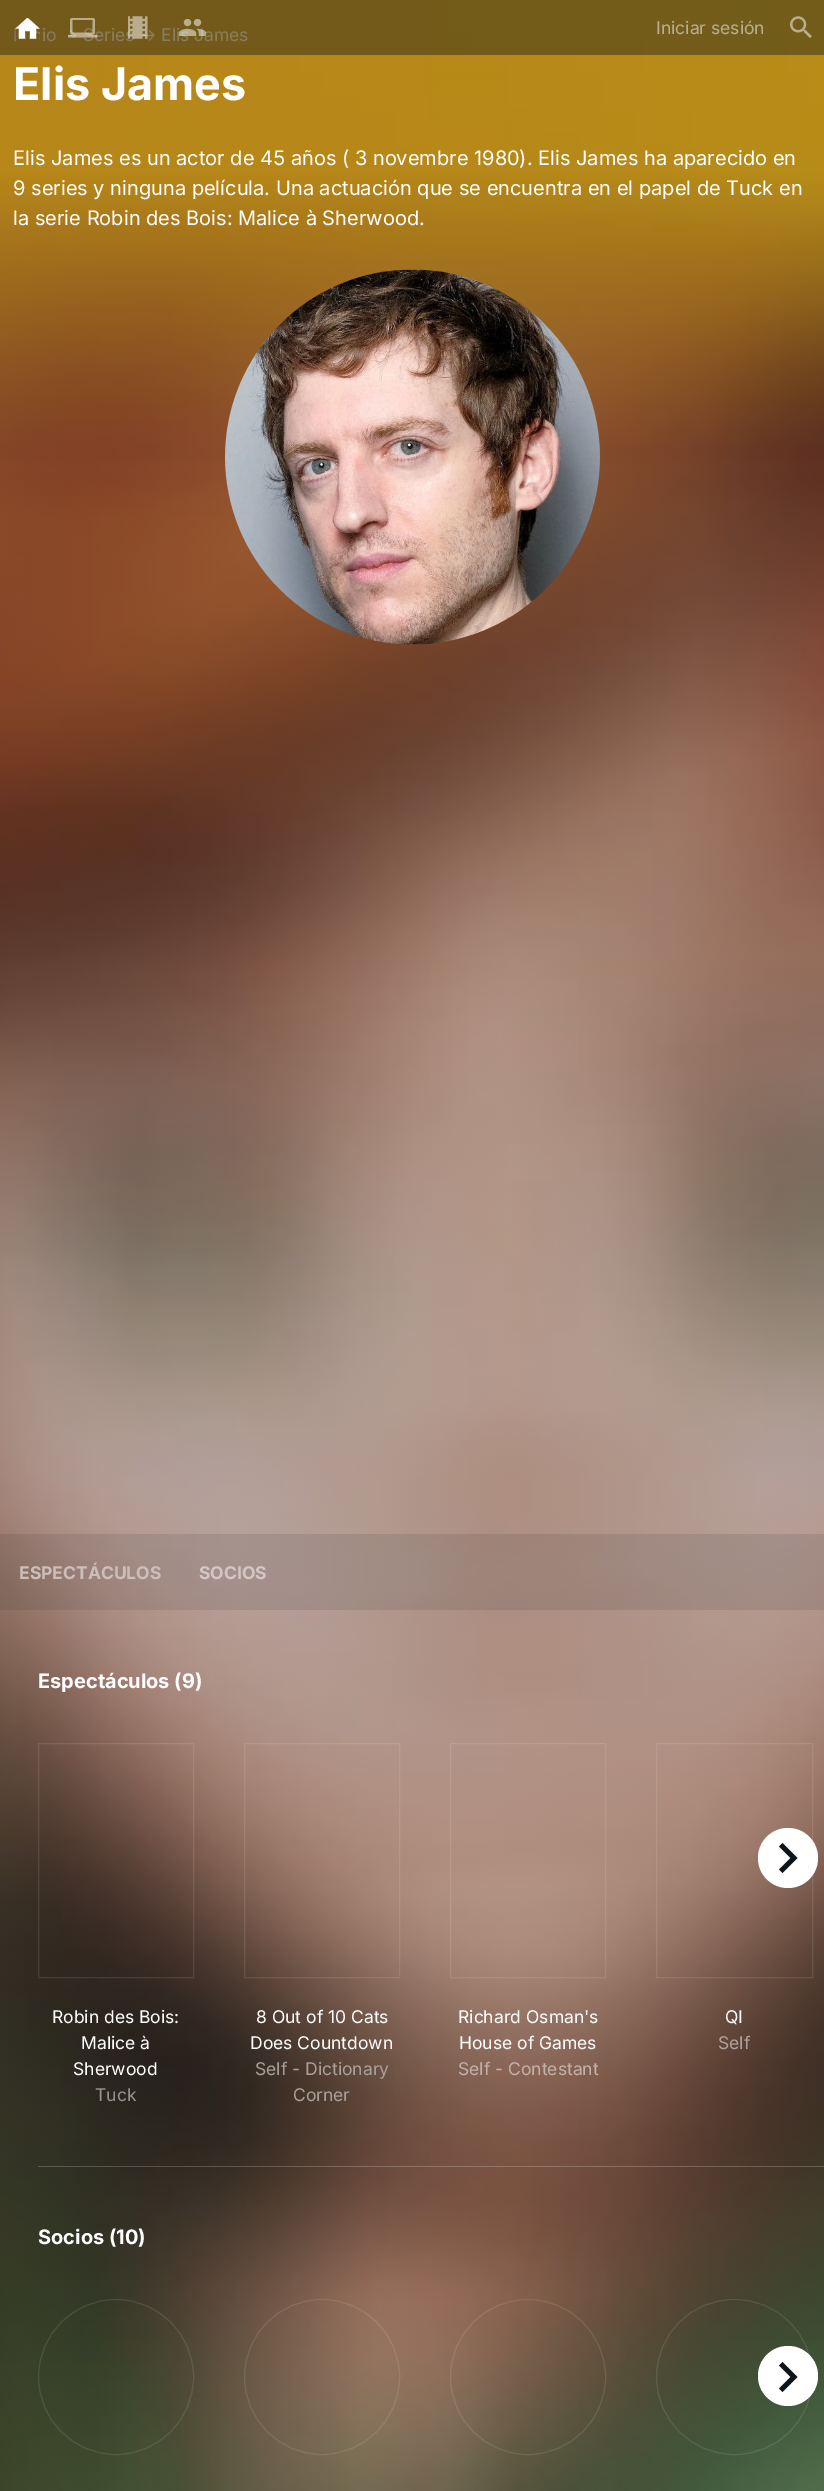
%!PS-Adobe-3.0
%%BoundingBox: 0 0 824 2491
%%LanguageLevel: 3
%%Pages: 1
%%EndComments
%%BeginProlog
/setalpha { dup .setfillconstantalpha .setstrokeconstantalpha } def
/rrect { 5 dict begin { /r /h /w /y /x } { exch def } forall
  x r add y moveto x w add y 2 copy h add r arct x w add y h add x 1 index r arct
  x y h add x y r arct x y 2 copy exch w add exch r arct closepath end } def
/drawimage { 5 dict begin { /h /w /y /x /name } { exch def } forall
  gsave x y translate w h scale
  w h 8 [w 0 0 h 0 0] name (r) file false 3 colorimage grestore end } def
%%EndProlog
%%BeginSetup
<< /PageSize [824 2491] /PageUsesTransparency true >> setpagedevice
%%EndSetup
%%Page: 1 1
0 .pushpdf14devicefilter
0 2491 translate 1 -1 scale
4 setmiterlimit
1 setgray
0 0 824 2491 rectfill
(images/1.raw) 0 0 824 2491 drawimage
(images/7.raw) 225 269 375 376 drawimage
0.1 setalpha
0.051 0.082 0.11 setrgbcolor
0 1534 824 76 rectfill
1 setgray
656.5 1743.5 156 234 rectstroke
1 setalpha
newpath 788 1858 30 0 360 arc closepath fill
0.051 0.082 0.11 setrgbcolor
newpath 779 1869.5 moveto 790.5 1858 lineto 779 1846.5 lineto 782.5 1843 lineto 797.5 1858 lineto 782.5 1873 lineto closepath fill
0.1 setalpha
1 setgray
38.5 1743.5 155 234 rectstroke
244.5 1743.5 155 234 rectstroke
450.5 1743.5 155 234 rectstroke
0.2 setalpha
38 2166 786 1 rectfill
0.1 setalpha
newpath 116 2377 77.5 0 360 arc closepath stroke
newpath 322 2377 77.5 0 360 arc closepath stroke
newpath 528 2377 77.5 0 360 arc closepath stroke
656.5 2299.5 156 155 77.5 rrect stroke
1 setalpha
newpath 788 2376 30 0 360 arc closepath fill
0.051 0.082 0.11 setrgbcolor
newpath 779 2388.5 moveto 790.5 2377 lineto 779 2365.5 lineto 782.5 2362 lineto 797.5 2377 lineto 782.5 2392 lineto closepath fill
/Inter-Regular [17.5 0 0 -17.5 0 0] selectfont
0.859 0.765 0.549 setrgbcolor
13 41 moveto (I) show
42 41 moveto (io) show
83 41 moveto (Series) show
140 41 moveto (→) show
161 41 moveto (Elis James) show
0.4 setalpha
0.051 0.082 0.11 setrgbcolor
0 0 824 55 rectfill
1 setalpha
(images/6.raw) 790 16 22 22 drawimage
0.725 0.682 0.553 setrgbcolor
656 34 moveto (Iniciar sesión) show
(images/5.raw) 179 19 27 17 drawimage
(images/4.raw) 128 16 20 23 drawimage
(images/3.raw) 68 18 30 20 drawimage
(images/2.raw) 15 18 25 21 drawimage
/Inter-Bold [45 0 0 -45 0 0] selectfont
1 setgray
13 100 moveto (Elis James) show
/Inter-Regular [20 0 0 -20 0 0] selectfont
13 165 moveto (Elis James es un actor de 45 años \( 3 novembre 1980\). Elis James ha aparecido en) show
13 195 moveto (9 series y ninguna película. Una actuación que se encuentra en el papel de Tuck en) show
13 225 moveto (la serie Robin des Bois: Malice à Sherwood.) show
/Inter-Bold [17.5 0 0 -17.5 0 0] selectfont
0.8 0.749 0.733 setrgbcolor
19 1579 moveto (ESPECTÁCULOS) show
0.824 0.78 0.773 setrgbcolor
199 1579 moveto (SOCIOS) show
/Inter-Bold [20 0 0 -20 0 0] selectfont
1 setgray
38 1688 moveto (Espectáculos \(9\)) show
/Inter-Regular [17.5 0 0 -17.5 0 0] selectfont
52 2023 moveto (Robin des Bois:) show
81 2049 moveto (Malice à) show
73 2075 moveto (Sherwood) show
0.584 0.573 0.561 setrgbcolor
95 2101 moveto (Tuck) show
1 setgray
256 2023 moveto (8 Out of 10 Cats) show
250 2049 moveto (Does Countdown) show
0.659 0.624 0.6 setrgbcolor
255 2075 moveto (Self - Dictionary) show
293 2101 moveto (Corner) show
1 setgray
458 2023 moveto (Richard Osman's) show
459 2049 moveto (House of Games) show
0.761 0.694 0.663 setrgbcolor
458 2075 moveto (Self - Contestant) show
1 setgray
725 2023 moveto (QI) show
0.682 0.631 0.604 setrgbcolor
718 2049 moveto (Self) show
/Inter-Bold [20 0 0 -20 0 0] selectfont
1 setgray
38 2244 moveto (Socios \(10\)) show
.poppdf14devicefilter showpage
%%EOF
